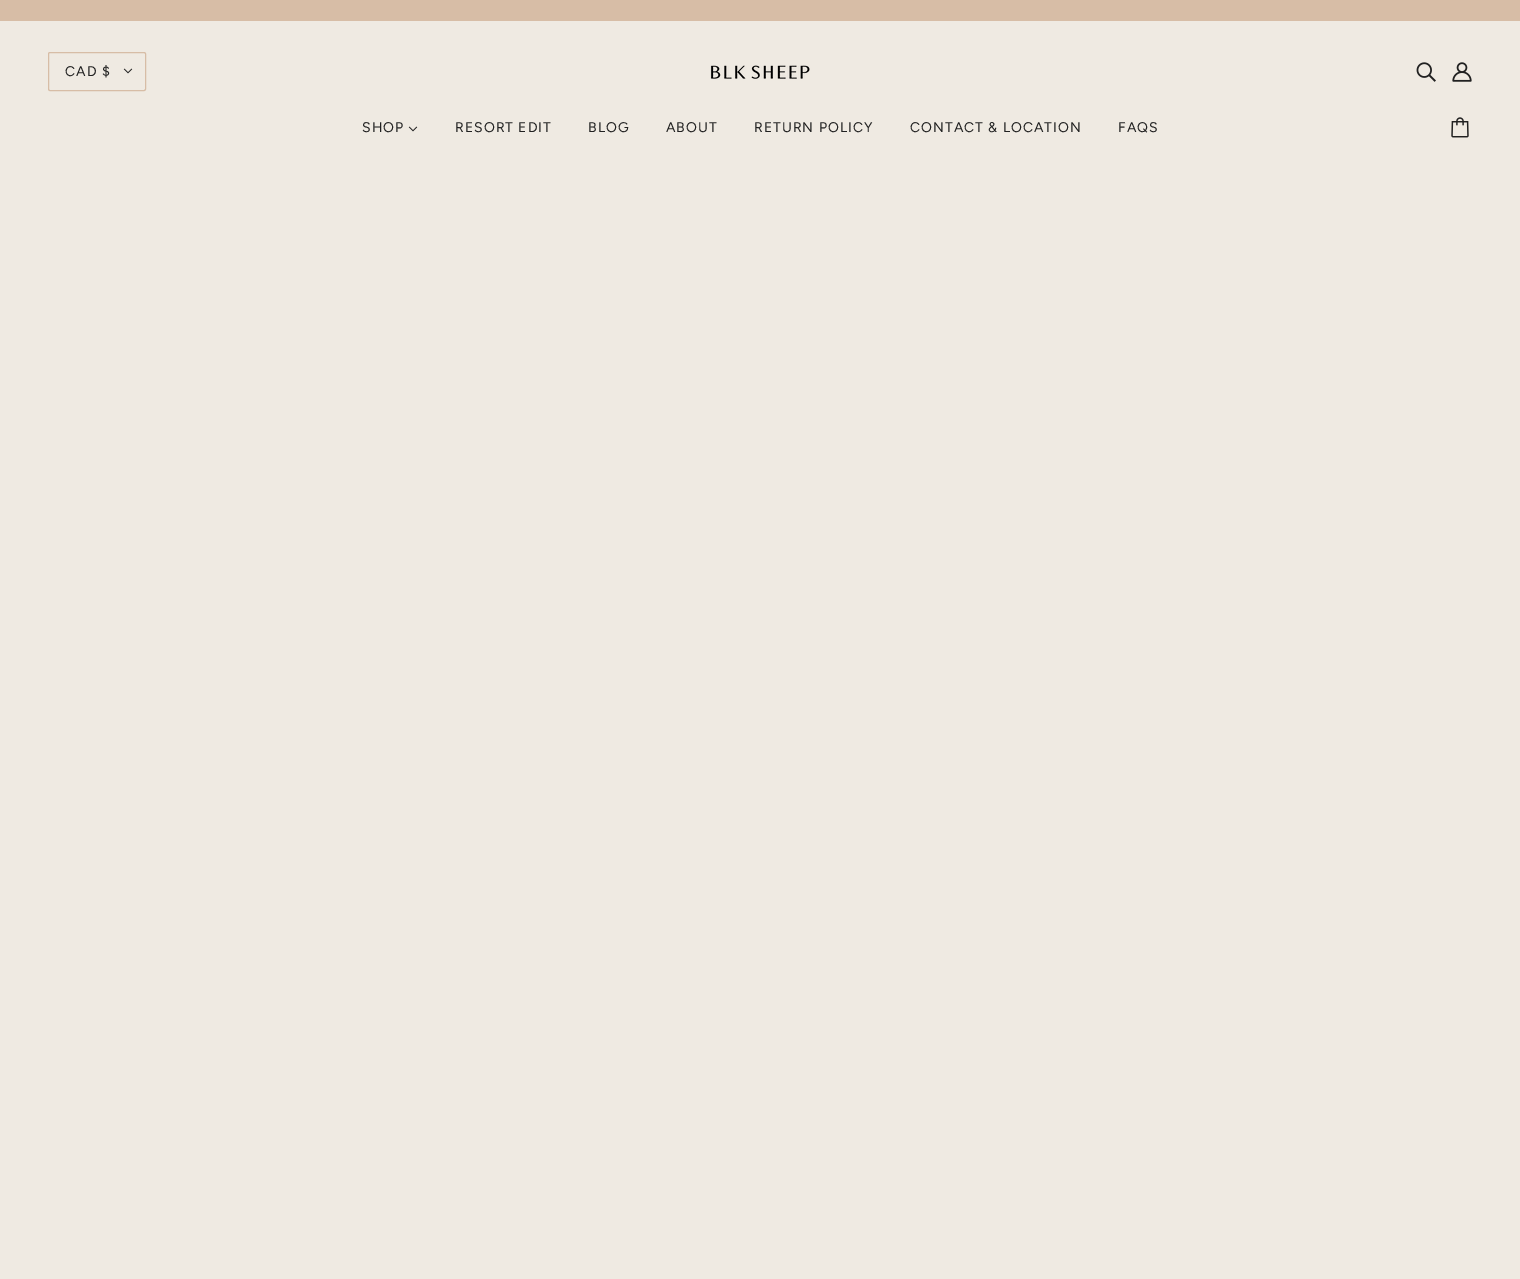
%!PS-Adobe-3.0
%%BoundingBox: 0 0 1520 1279
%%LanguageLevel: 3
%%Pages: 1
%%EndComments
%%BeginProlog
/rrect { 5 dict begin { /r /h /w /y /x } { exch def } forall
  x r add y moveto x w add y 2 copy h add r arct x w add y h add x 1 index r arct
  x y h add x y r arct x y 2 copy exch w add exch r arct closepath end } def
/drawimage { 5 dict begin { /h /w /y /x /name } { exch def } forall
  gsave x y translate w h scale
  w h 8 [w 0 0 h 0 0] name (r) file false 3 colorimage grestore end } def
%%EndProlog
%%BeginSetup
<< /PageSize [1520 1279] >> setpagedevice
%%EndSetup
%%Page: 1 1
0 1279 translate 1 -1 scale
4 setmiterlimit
0.937 0.918 0.886 setrgbcolor
0 0 1520 1279 rectfill
0.843 0.741 0.651 setrgbcolor
0 0 1520 21 rectfill
48.5 52.5 97 38 1.5 rrect stroke
(images/1.raw) 123 68 10 6 drawimage
(images/2.raw) 710 65 100 14 drawimage
(images/3.raw) 1416 62 20 20 drawimage
(images/4.raw) 1452 62 20 20 drawimage
(images/1.raw) 408 126 10 6 drawimage
(images/5.raw) 1451 117 18 21 drawimage
/Figtree-Regular [14 0 0 -14 0 0] selectfont
0.129 setgray
65 76 moveto 1 0 (CAD $) ashow
362 132 moveto 1 0 (SHOP) ashow
455 132 moveto 1 0 (RESORT EDIT) ashow
588 132 moveto 1 0 (BLOG) ashow
666 132 moveto 1 0 (ABOUT) ashow
754 132 moveto 1 0 (RETURN POLICY) ashow
910 132 moveto 1 0 (CONTACT & LOCATION) ashow
1118 132 moveto 1 0 (FAQS) ashow
showpage
%%EOF
